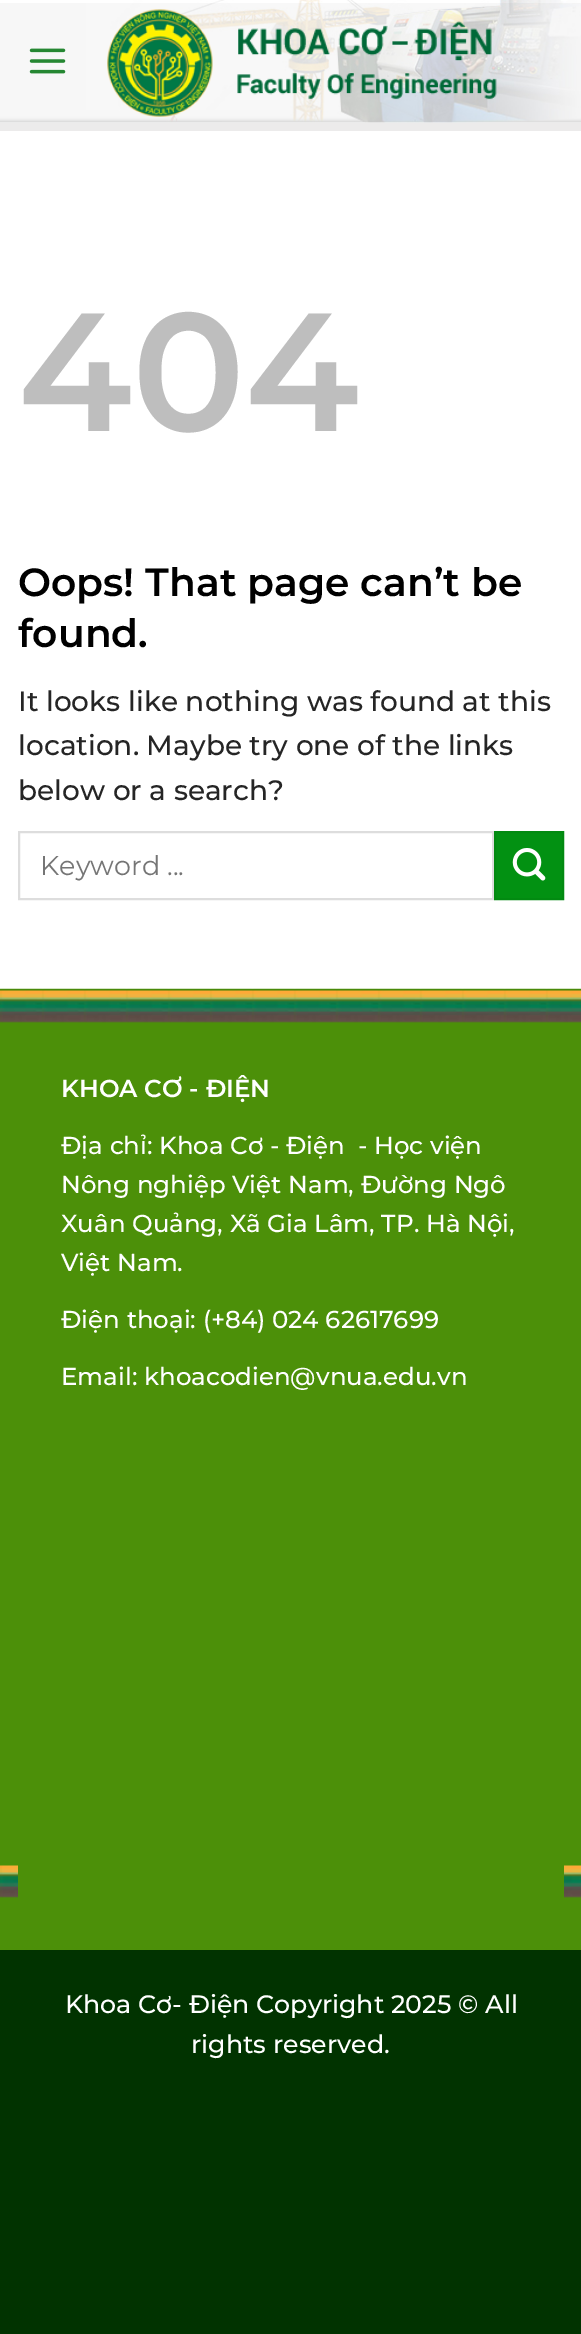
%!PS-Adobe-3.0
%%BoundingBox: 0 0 581 2334
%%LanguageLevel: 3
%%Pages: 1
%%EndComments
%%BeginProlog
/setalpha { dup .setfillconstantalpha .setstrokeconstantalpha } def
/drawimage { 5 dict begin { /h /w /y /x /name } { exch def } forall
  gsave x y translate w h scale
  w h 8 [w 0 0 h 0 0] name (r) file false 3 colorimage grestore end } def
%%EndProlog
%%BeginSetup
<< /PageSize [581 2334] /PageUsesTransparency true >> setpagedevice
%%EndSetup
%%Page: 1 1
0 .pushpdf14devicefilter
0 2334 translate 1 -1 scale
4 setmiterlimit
0.004 0.2 0 setrgbcolor
0 0 581 2334 rectfill
1 setgray
0 122 581 867 rectfill
(images/1.raw) 0 0 581 123 drawimage
(images/2.raw) 29 48 37 26 drawimage
(images/3.raw) 107 9 390 108 drawimage
0.925 0.922 0.922 setrgbcolor
0 123 581 8 rectfill
0.867 setgray
2 setlinewidth
19 832 474 67 rectstroke
0.008 0.569 0.071 setrgbcolor
newpath 495 832 moveto 563 832 lineto 563 899 lineto 495 899 lineto closepath gsave fill grestore
0.008 0.541 0.067 setrgbcolor
stroke
(images/4.raw) 512 848 34 33 drawimage
0.298 0.565 0.035 setrgbcolor
0 989 581 961 rectfill
(images/5.raw) 0 988 581 910 drawimage
0.05 setalpha
0 setgray
0 989 581 2 rectfill
1 setalpha
0.298 0.565 0.035 setrgbcolor
18 1865 546 33 rectfill
/Montserrat-SemiBold [168 0 0 -168 0 0] selectfont
0.745 setgray
18 431 moveto (404) show
/Montserrat-SemiBold [39.25 0 0 -39.25 0 0] selectfont
0 setgray
18 596 moveto (Oops! That page can’t be) show
18 647 moveto (found.) show
/Montserrat-Medium [28 0 0 -28 0 0] selectfont
0.145 setgray
18 711 moveto (It looks like nothing was found at this) show
18 755 moveto (location. Maybe try one of the links) show
18 800 moveto (below or a search?) show
/Montserrat-Regular [27 0 0 -27 0 0] selectfont
0.459 setgray
40 875 moveto (Keyword ...) show
/Montserrat-SemiBold [24.5 0 0 -24.5 0 0] selectfont
1 setgray
61 1097 moveto (KHOA CƠ - ĐIỆN) show
/Montserrat-Medium [24.5 0 0 -24.5 0 0] selectfont
61 1154 moveto (Địa chỉ: Khoa Cơ - Điện  - Học viện) show
61 1193 moveto (Nông nghiệp Việt Nam, Đường Ngô) show
61 1232 moveto (Xuân Quảng, Xã Gia Lâm, TP. Hà Nội,) show
61 1271 moveto (Việt Nam.) show
61 1328 moveto (Điện thoại: \(+84\) 024 62617699) show
61 1385 moveto (Email: khoacodien@vnua.edu.vn) show
/Montserrat-Medium [25.25 0 0 -25.25 0 0] selectfont
65 2013 moveto (Khoa Cơ- Điện Copyright 2025 © All) show
191 2053 moveto (rights reserved.) show
.poppdf14devicefilter showpage
%%EOF
